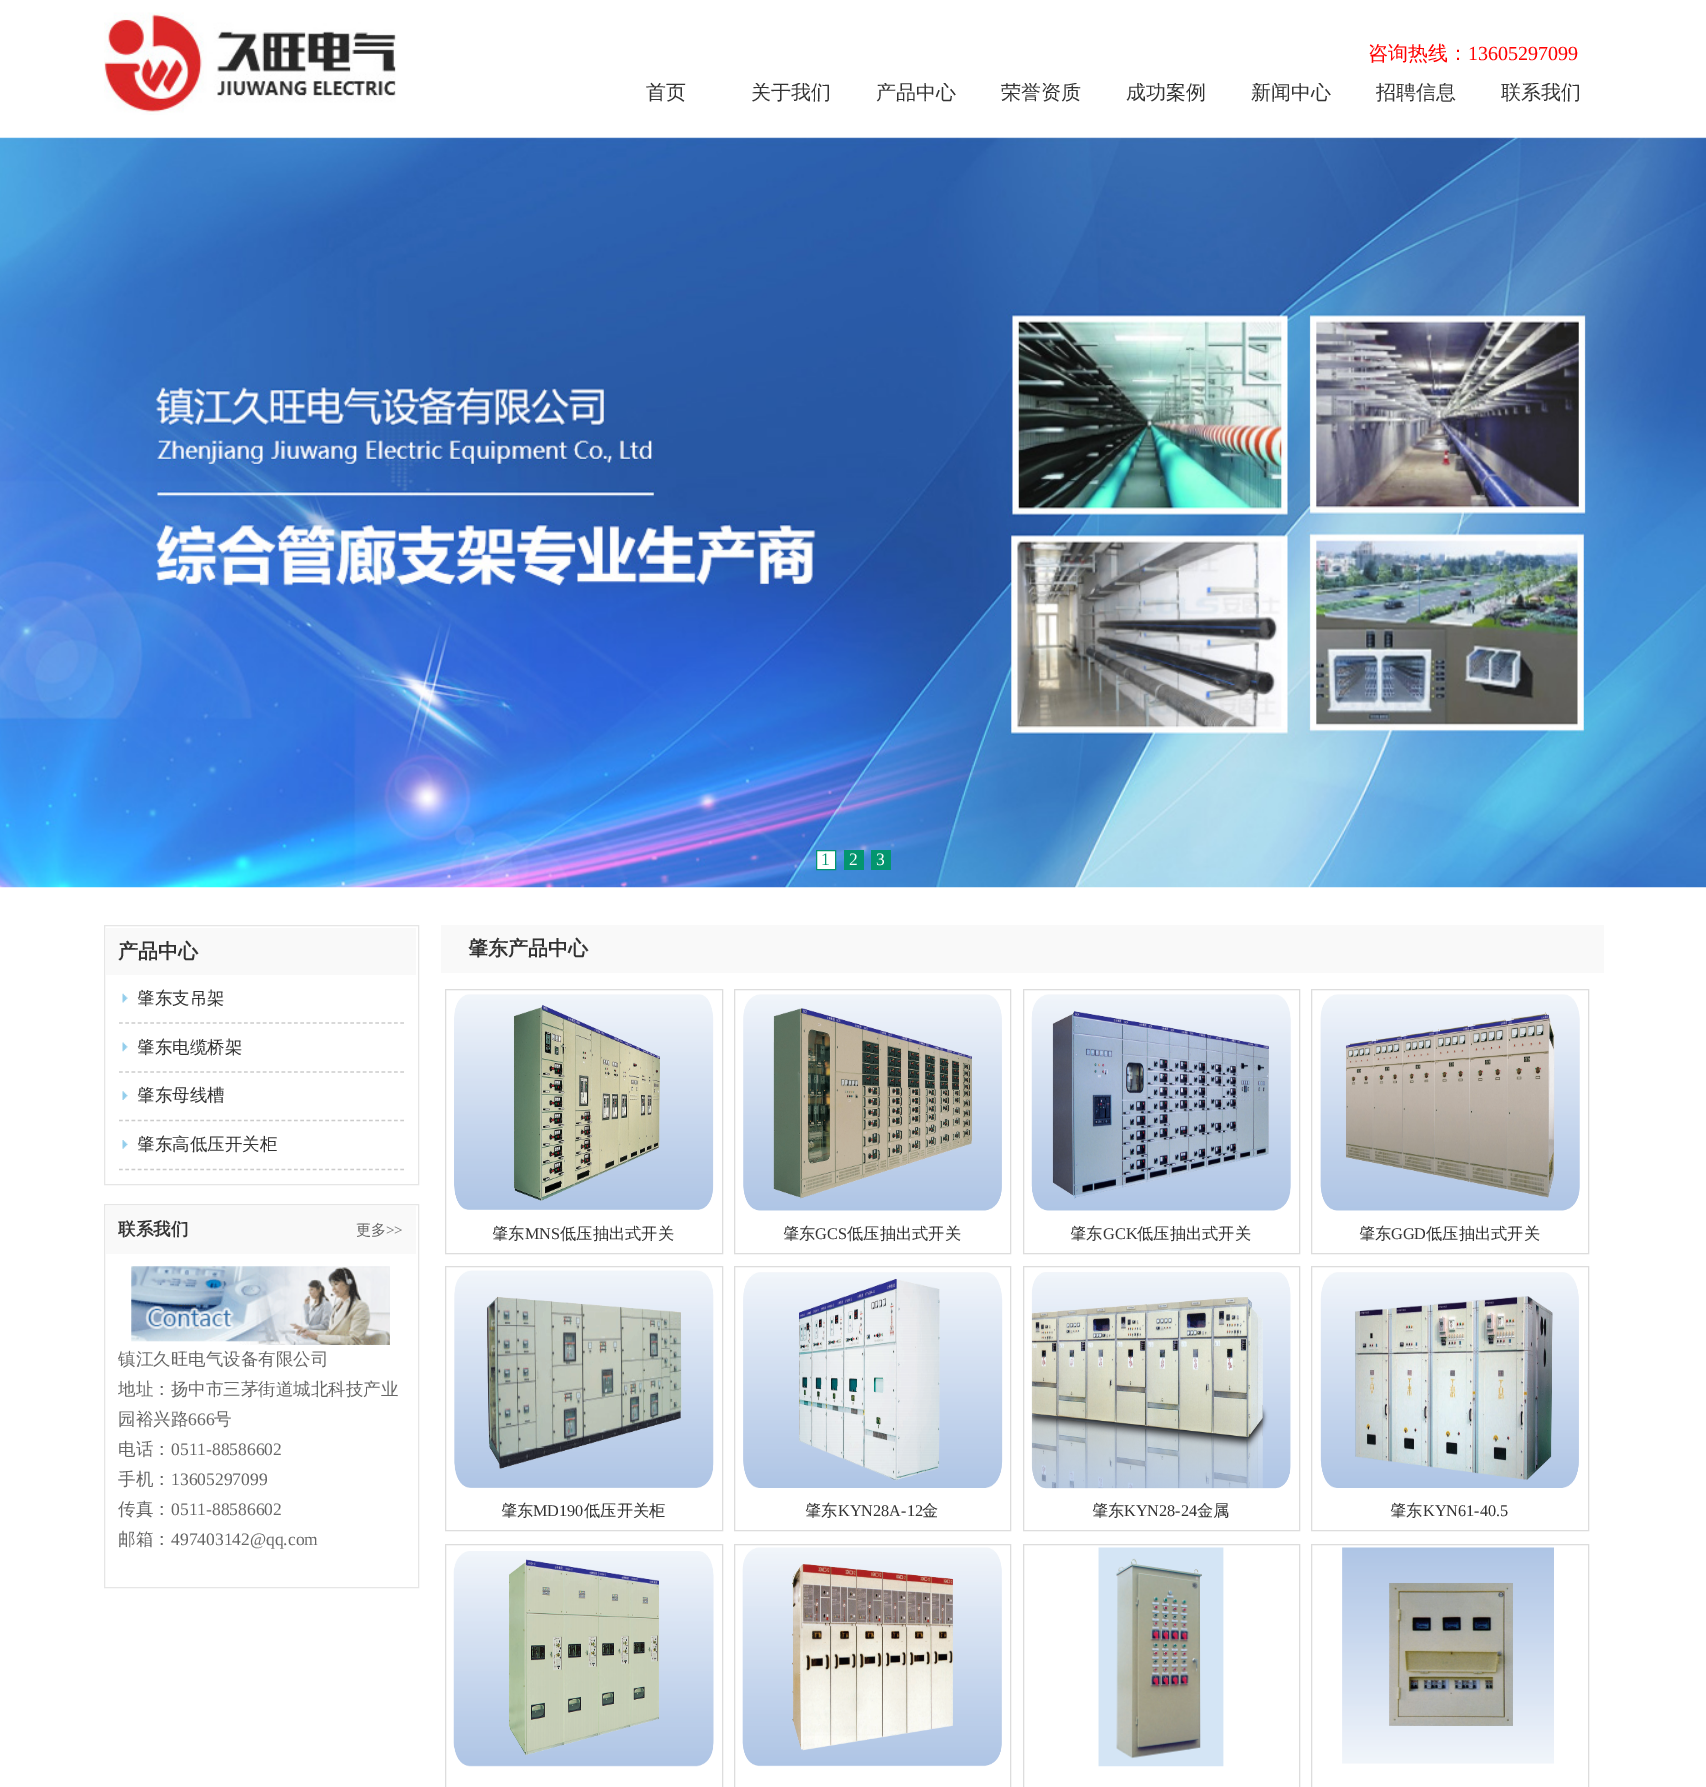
%!PS-Adobe-3.0
%%BoundingBox: 0 0 1706 1787
%%LanguageLevel: 3
%%Pages: 1
%%EndComments
%%BeginProlog
/drawimage { 5 dict begin { /h /w /y /x /name } { exch def } forall
  gsave x y translate w h scale
  w h 8 [w 0 0 h 0 0] name (r) file false 3 colorimage grestore end } def
%%EndProlog
%%BeginSetup
<< /PageSize [1706 1787] >> setpagedevice
%%EndSetup
%%Page: 1 1
0 1787 translate 1 -1 scale
4 setmiterlimit
1 setgray
0 0 1706 1787 rectfill
(images/1.raw) 104 12 292 103 drawimage
(images/2.raw) 0 137 1706 751 drawimage
newpath 816.5 850.5 moveto 835.5 850.5 lineto 835.5 869.5 lineto 816.5 869.5 lineto closepath gsave fill grestore
0.012 0.584 0.431 setrgbcolor
stroke
844 850 20 20 rectfill
871 850 20 20 rectfill
0.902 setgray
104.5 925.5 314 259 rectstroke
0.976 setgray
106 928 310 47 rectfill
0.8 setgray
1.2 setlinewidth
[3.75 2.5] 0 setdash
newpath 119 1023 moveto 404 1023 lineto stroke
(images/3.raw) 122 993 6 10 drawimage
newpath 119 1072 moveto 404 1072 lineto stroke
(images/4.raw) 122 1042 6 10 drawimage
newpath 119 1120.5 moveto 404 1120.5 lineto stroke
(images/5.raw) 122 1091 6 9 drawimage
newpath 119 1169.5 moveto 404 1169.5 lineto stroke
(images/6.raw) 122 1140 6 9 drawimage
0.902 setgray
1 setlinewidth
[] 0 setdash
104.5 1204.5 314 383 rectstroke
0.976 setgray
106 1206 310 48 rectfill
(images/7.raw) 131 1266 259 79 drawimage
441 925 1163 48 rectfill
0.867 setgray
445.5 989.5 277 264 rectstroke
(images/8.raw) 454 994 260 216 drawimage
734.5 989.5 276 264 rectstroke
(images/9.raw) 743 994 259 217 drawimage
1023.5 989.5 276 264 rectstroke
(images/10.raw) 1031 994 260 217 drawimage
1311.5 989.5 277 264 rectstroke
(images/11.raw) 1320 994 260 217 drawimage
445.5 1266.5 277 264 rectstroke
(images/12.raw) 454 1270 260 218 drawimage
734.5 1266.5 276 264 rectstroke
(images/13.raw) 743 1272 260 216 drawimage
1023.5 1266.5 276 264 rectstroke
(images/14.raw) 1031 1272 260 217 drawimage
1311.5 1266.5 277 264 rectstroke
(images/15.raw) 1320 1272 259 216 drawimage
445.5 1544.5 277 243 rectstroke
(images/16.raw) 453 1551 261 216 drawimage
734.5 1544.5 276 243 rectstroke
(images/17.raw) 742 1547 260 220 drawimage
1023.5 1544.5 276 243 rectstroke
(images/18.raw) 1098 1547 126 220 drawimage
1311.5 1544.5 277 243 rectstroke
(images/19.raw) 1342 1547 212 217 drawimage
/WenQuanYiZenHei-Medium [20 0 0 -20 0 0] selectfont
1 0 0 setrgbcolor
1368 60 moveto (咨询热线：) show
/LiberationSerif-Regular [20 0 0 -20 0 0] selectfont
1468 60 moveto (13605297099) show
/WenQuanYiZenHei-Medium [20 0 0 -20 0 0] selectfont
0.2 setgray
646 99 moveto (首页) show
gsave
729 83 125 20 rectclip
751 99 moveto (关于我们) show
grestore
gsave
854 83 125 20 rectclip
876 99 moveto (产品中心) show
grestore
gsave
979 83 125 20 rectclip
1001 99 moveto (荣誉资质) show
grestore
gsave
1104 83 125 20 rectclip
1126 99 moveto (成功案例) show
grestore
gsave
1229 83 125 20 rectclip
1251 99 moveto (新闻中心) show
grestore
gsave
1354 83 125 20 rectclip
1376 99 moveto (招聘信息) show
grestore
gsave
1479 83 125 20 rectclip
1501 99 moveto (联系我们) show
grestore
/LiberationSerif-Regular [17.5 0 0 -17.5 0 0] selectfont
0.012 0.584 0.431 setrgbcolor
821 865 moveto (1) show
1 setgray
849 865 moveto (2) show
876 865 moveto (3) show
/WenQuanYiZenHei-Bold [20 0 0 -20 0 0] selectfont
0.2 setgray
118 958 moveto (产品中心) show
/WenQuanYiZenHei-Medium [17.5 0 0 -17.5 0 0] selectfont
137 1004 moveto (肇东支吊架) show
137 1053 moveto (肇东电缆桥架) show
137 1101 moveto (肇东母线槽) show
137 1150 moveto (肇东高低压开关柜) show
/WenQuanYiZenHei-Bold [17.5 0 0 -17.5 0 0] selectfont
118 1235 moveto (联系我们) show
/WenQuanYiZenHei-Medium [15 0 0 -15 0 0] selectfont
0.4 setgray
356 1235 moveto (更多) show
/LiberationSerif-Regular [15 0 0 -15 0 0] selectfont
386 1235 moveto (>>) show
/WenQuanYiZenHei-Medium [17.5 0 0 -17.5 0 0] selectfont
118 1365 moveto (镇江久旺电气设备有限公司) show
118 1395 moveto (地址：扬中市三茅街道城北科技产业) show
118 1425 moveto (园裕兴路) show
/LiberationSerif-Regular [17.5 0 0 -17.5 0 0] selectfont
188 1425 moveto (666) show
/WenQuanYiZenHei-Medium [17.5 0 0 -17.5 0 0] selectfont
214 1425 moveto (号) show
118 1455 moveto (电话：) show
/LiberationSerif-Regular [17.5 0 0 -17.5 0 0] selectfont
171 1455 moveto (0511-88586602) show
/WenQuanYiZenHei-Medium [17.5 0 0 -17.5 0 0] selectfont
118 1485 moveto (手机：) show
/LiberationSerif-Regular [17.5 0 0 -17.5 0 0] selectfont
171 1485 moveto (13605297099) show
/WenQuanYiZenHei-Medium [17.5 0 0 -17.5 0 0] selectfont
118 1515 moveto (传真：) show
/LiberationSerif-Regular [17.5 0 0 -17.5 0 0] selectfont
171 1515 moveto (0511-88586602) show
/WenQuanYiZenHei-Medium [17.5 0 0 -17.5 0 0] selectfont
118 1545 moveto (邮箱：) show
/LiberationSerif-Regular [17.5 0 0 -17.5 0 0] selectfont
171 1545 moveto (497403142@qq.com) show
/WenQuanYiZenHei-Bold [20 0 0 -20 0 0] selectfont
0.2 setgray
468 955 moveto (肇东产品中心) show
/WenQuanYiZenHei-Medium [16.25 0 0 -16.25 0 0] selectfont
492 1239 moveto (肇东) show
/LiberationSerif-Regular [16.25 0 0 -16.25 0 0] selectfont
525 1239 moveto (MNS) show
/WenQuanYiZenHei-Medium [16.25 0 0 -16.25 0 0] selectfont
560 1239 moveto (低压抽出式开关) show
783 1239 moveto (肇东) show
/LiberationSerif-Regular [16.25 0 0 -16.25 0 0] selectfont
815 1239 moveto (GCS) show
/WenQuanYiZenHei-Medium [16.25 0 0 -16.25 0 0] selectfont
847 1239 moveto (低压抽出式开关) show
1070 1239 moveto (肇东) show
/LiberationSerif-Regular [16.25 0 0 -16.25 0 0] selectfont
1103 1239 moveto (GCK) show
/WenQuanYiZenHei-Medium [16.25 0 0 -16.25 0 0] selectfont
1137 1239 moveto (低压抽出式开关) show
1359 1239 moveto (肇东) show
/LiberationSerif-Regular [16.25 0 0 -16.25 0 0] selectfont
1391 1239 moveto (GGD) show
/WenQuanYiZenHei-Medium [16.25 0 0 -16.25 0 0] selectfont
1426 1239 moveto (低压抽出式开关) show
501 1516 moveto (肇东) show
/LiberationSerif-Regular [16.25 0 0 -16.25 0 0] selectfont
533 1516 moveto (MD190) show
/WenQuanYiZenHei-Medium [16.25 0 0 -16.25 0 0] selectfont
584 1516 moveto (低压开关柜) show
805 1516 moveto (肇东) show
/LiberationSerif-Regular [16.25 0 0 -16.25 0 0] selectfont
838 1516 moveto (KYN28A-12) show
/WenQuanYiZenHei-Medium [16.25 0 0 -16.25 0 0] selectfont
922 1516 moveto (金) show
1092 1516 moveto (肇东) show
/LiberationSerif-Regular [16.25 0 0 -16.25 0 0] selectfont
1124 1516 moveto (KYN28-24) show
/WenQuanYiZenHei-Medium [16.25 0 0 -16.25 0 0] selectfont
1197 1516 moveto (金属) show
1390 1516 moveto (肇东) show
/LiberationSerif-Regular [16.25 0 0 -16.25 0 0] selectfont
1423 1516 moveto (KYN61-40.5) show
showpage
%%EOF
